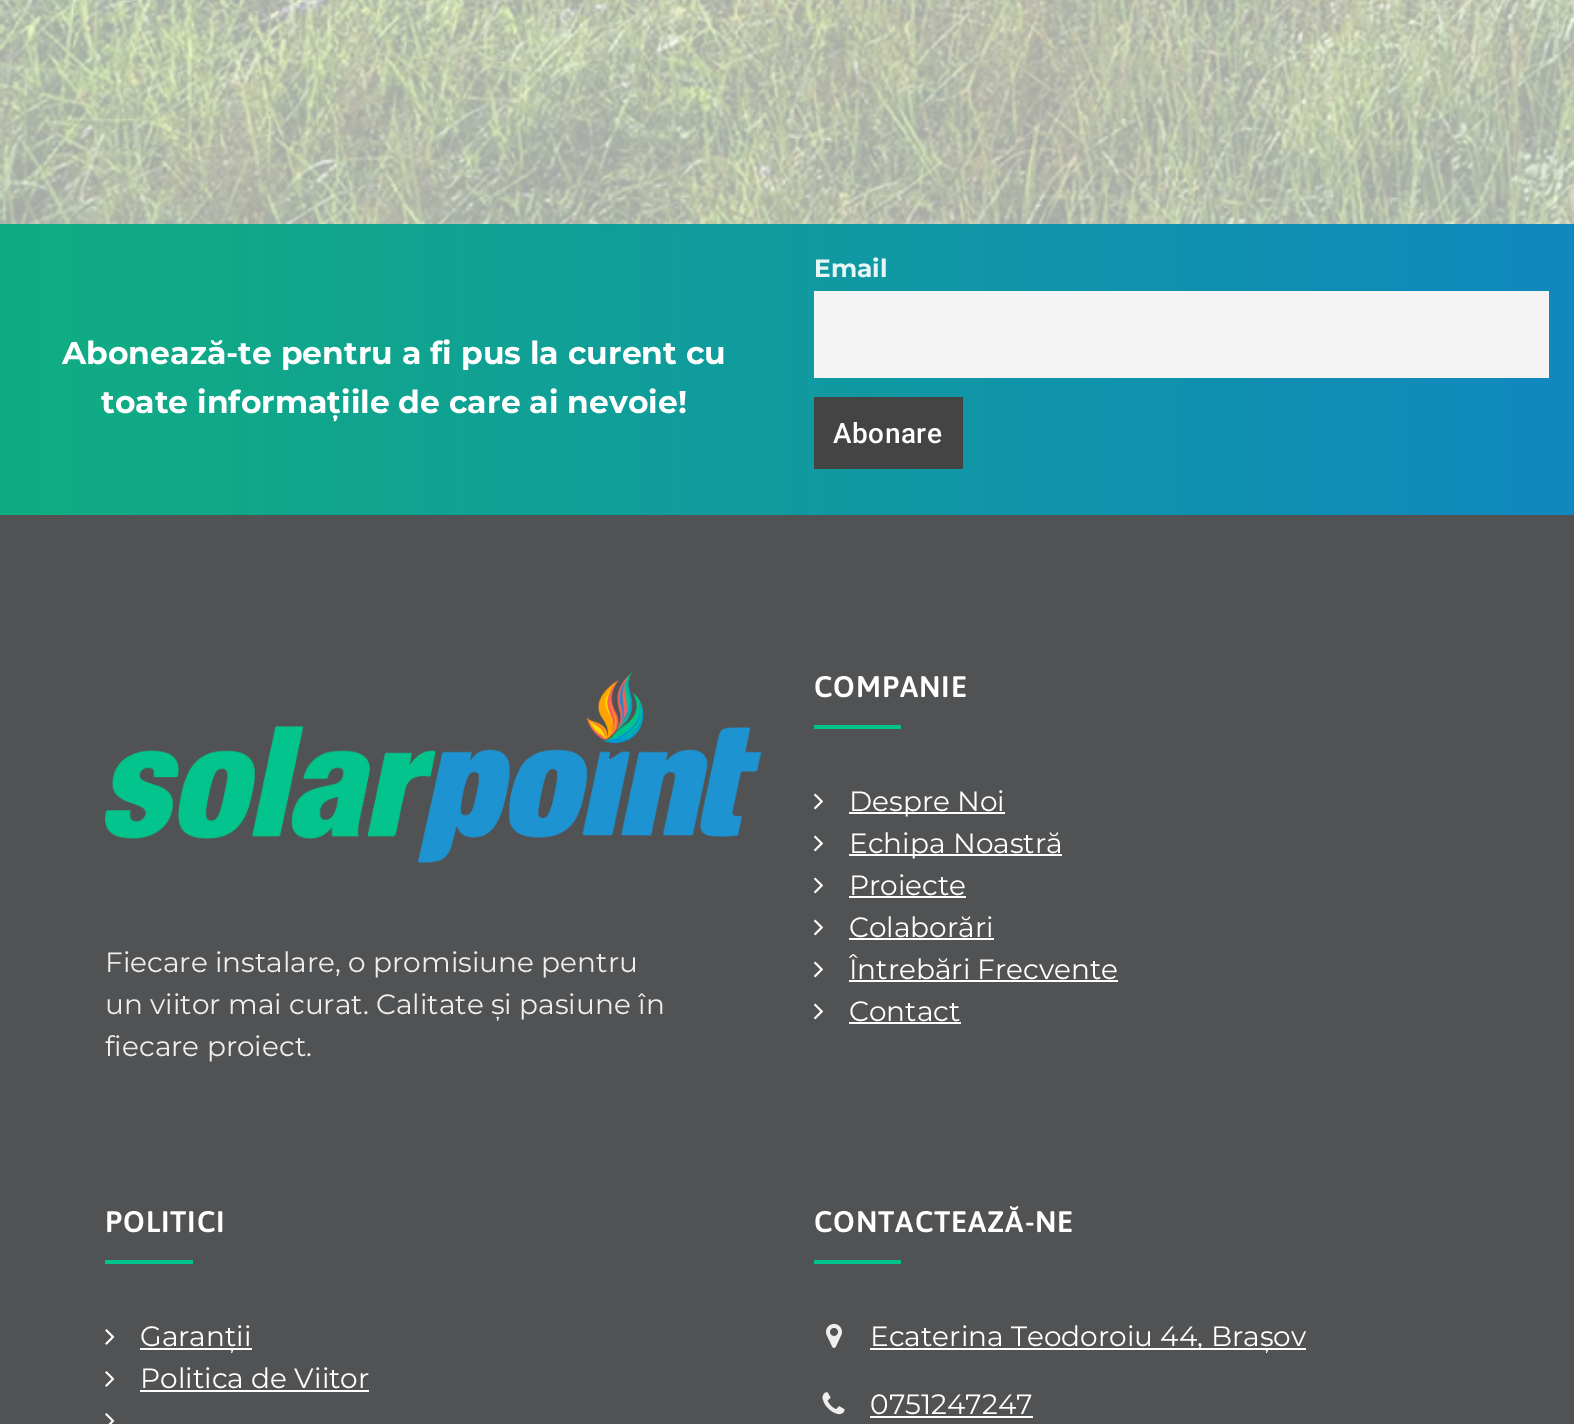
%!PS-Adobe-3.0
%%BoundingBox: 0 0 1574 1424
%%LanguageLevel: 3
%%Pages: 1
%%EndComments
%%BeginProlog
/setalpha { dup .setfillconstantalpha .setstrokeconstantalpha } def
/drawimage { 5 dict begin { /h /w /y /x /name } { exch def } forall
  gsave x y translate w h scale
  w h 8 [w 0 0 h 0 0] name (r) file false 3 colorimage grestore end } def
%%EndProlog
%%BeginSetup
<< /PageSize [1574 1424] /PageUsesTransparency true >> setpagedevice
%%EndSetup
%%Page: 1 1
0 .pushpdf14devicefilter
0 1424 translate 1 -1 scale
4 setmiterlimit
1 setgray
0 0 1574 1424 rectfill
0.318 0.322 0.325 setrgbcolor
0 224 1574 1200 rectfill
(images/1.raw) 0 0 1574 225 drawimage
0.8 setalpha
gsave newpath 0 224 moveto 1574 224 lineto 1574 515 lineto 0 515 lineto closepath clip newpath
<< /ShadingType 2 /ColorSpace /DeviceRGB /Coords [0 369 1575 369] /Extend [true true] /Function << /FunctionType 2 /Domain [0 1] /C0 [0 0.769 0.549] /C1 [0 0.584 0.855] /N 1 >> >> shfill grestore
1 setalpha
0.957 setgray
814 291 735 87 rectfill
0.267 setgray
814 397 149 72 rectfill
(images/2.raw) 105 672 657 191 drawimage
0 0.769 0.549 setrgbcolor
814 725 87 4 rectfill
(images/3.raw) 814 793 9 17 drawimage
1 setgray
849 812 156 2 rectfill
(images/3.raw) 814 835 9 17 drawimage
849 854 213 2 rectfill
(images/3.raw) 814 877 9 17 drawimage
849 896 117 2 rectfill
(images/3.raw) 814 919 9 17 drawimage
849 938 145 2 rectfill
(images/3.raw) 814 961 9 17 drawimage
849 980 269 2 rectfill
(images/3.raw) 814 1003 9 17 drawimage
849 1022 112 2 rectfill
0 0.769 0.549 setrgbcolor
105 1260 88 4 rectfill
(images/4.raw) 105 1329 10 16 drawimage
1 setgray
140 1348 112 2 rectfill
(images/4.raw) 105 1371 10 16 drawimage
140 1390 229 2 rectfill
(images/5.raw) 105 1413 10 11 drawimage
0 0.769 0.549 setrgbcolor
814 1260 87 4 rectfill
(images/6.raw) 826 1324 16 24 drawimage
1 setgray
870 1348 436 2 rectfill
(images/7.raw) 822 1392 23 23 drawimage
870 1416 163 2 rectfill
/Montserrat-Bold [31.5 0 0 -31.5 0 0] selectfont
62 364 moveto (Abonează-te pentru a fi pus la curent cu) show
101 413 moveto (toate informațiile de care ai nevoie!) show
/Montserrat-Bold [25 0 0 -25 0 0] selectfont
0.906 0.961 0.965 setrgbcolor
814 277 moveto (Email) show
/Roboto-Medium [28 0 0 -28 0 0] selectfont
1 setgray
833 443 moveto 0.5 0 (Abonare) ashow
/Montserrat-Regular [28 0 0 -28 0 0] selectfont
0.933 setgray
105 972 moveto (Fiecare instalare, o promisiune pentru) show
105 1014 moveto (un viitor mai curat. Calitate și pasiune în) show
105 1056 moveto (fiecare proiect.) show
/Asap-SemiBold [29.75 0 0 -29.75 0 0] selectfont
1 setgray
814 697 moveto 0.9 0 (COMPANIE) ashow
/Montserrat-Regular [28 0 0 -28 0 0] selectfont
849 811 moveto (Despre Noi) show
849 853 moveto (Echipa Noastră) show
849 895 moveto (Proiecte) show
849 937 moveto (Colaborări) show
849 979 moveto (Întrebări Frecvente) show
849 1021 moveto (Contact) show
/Asap-SemiBold [29.75 0 0 -29.75 0 0] selectfont
105 1232 moveto 0.9 0 (POLITICI) ashow
/Montserrat-Regular [28 0 0 -28 0 0] selectfont
140 1346 moveto (Garanții) show
140 1388 moveto (Politica de Viitor) show
/Asap-SemiBold [29.75 0 0 -29.75 0 0] selectfont
814 1232 moveto 0.9 0 (CONTACTEAZĂ-NE) ashow
/Montserrat-Regular [28 0 0 -28 0 0] selectfont
870 1346 moveto (Ecaterina Teodoroiu 44, Brașov) show
870 1414 moveto (0751247247) show
.poppdf14devicefilter showpage
%%EOF
